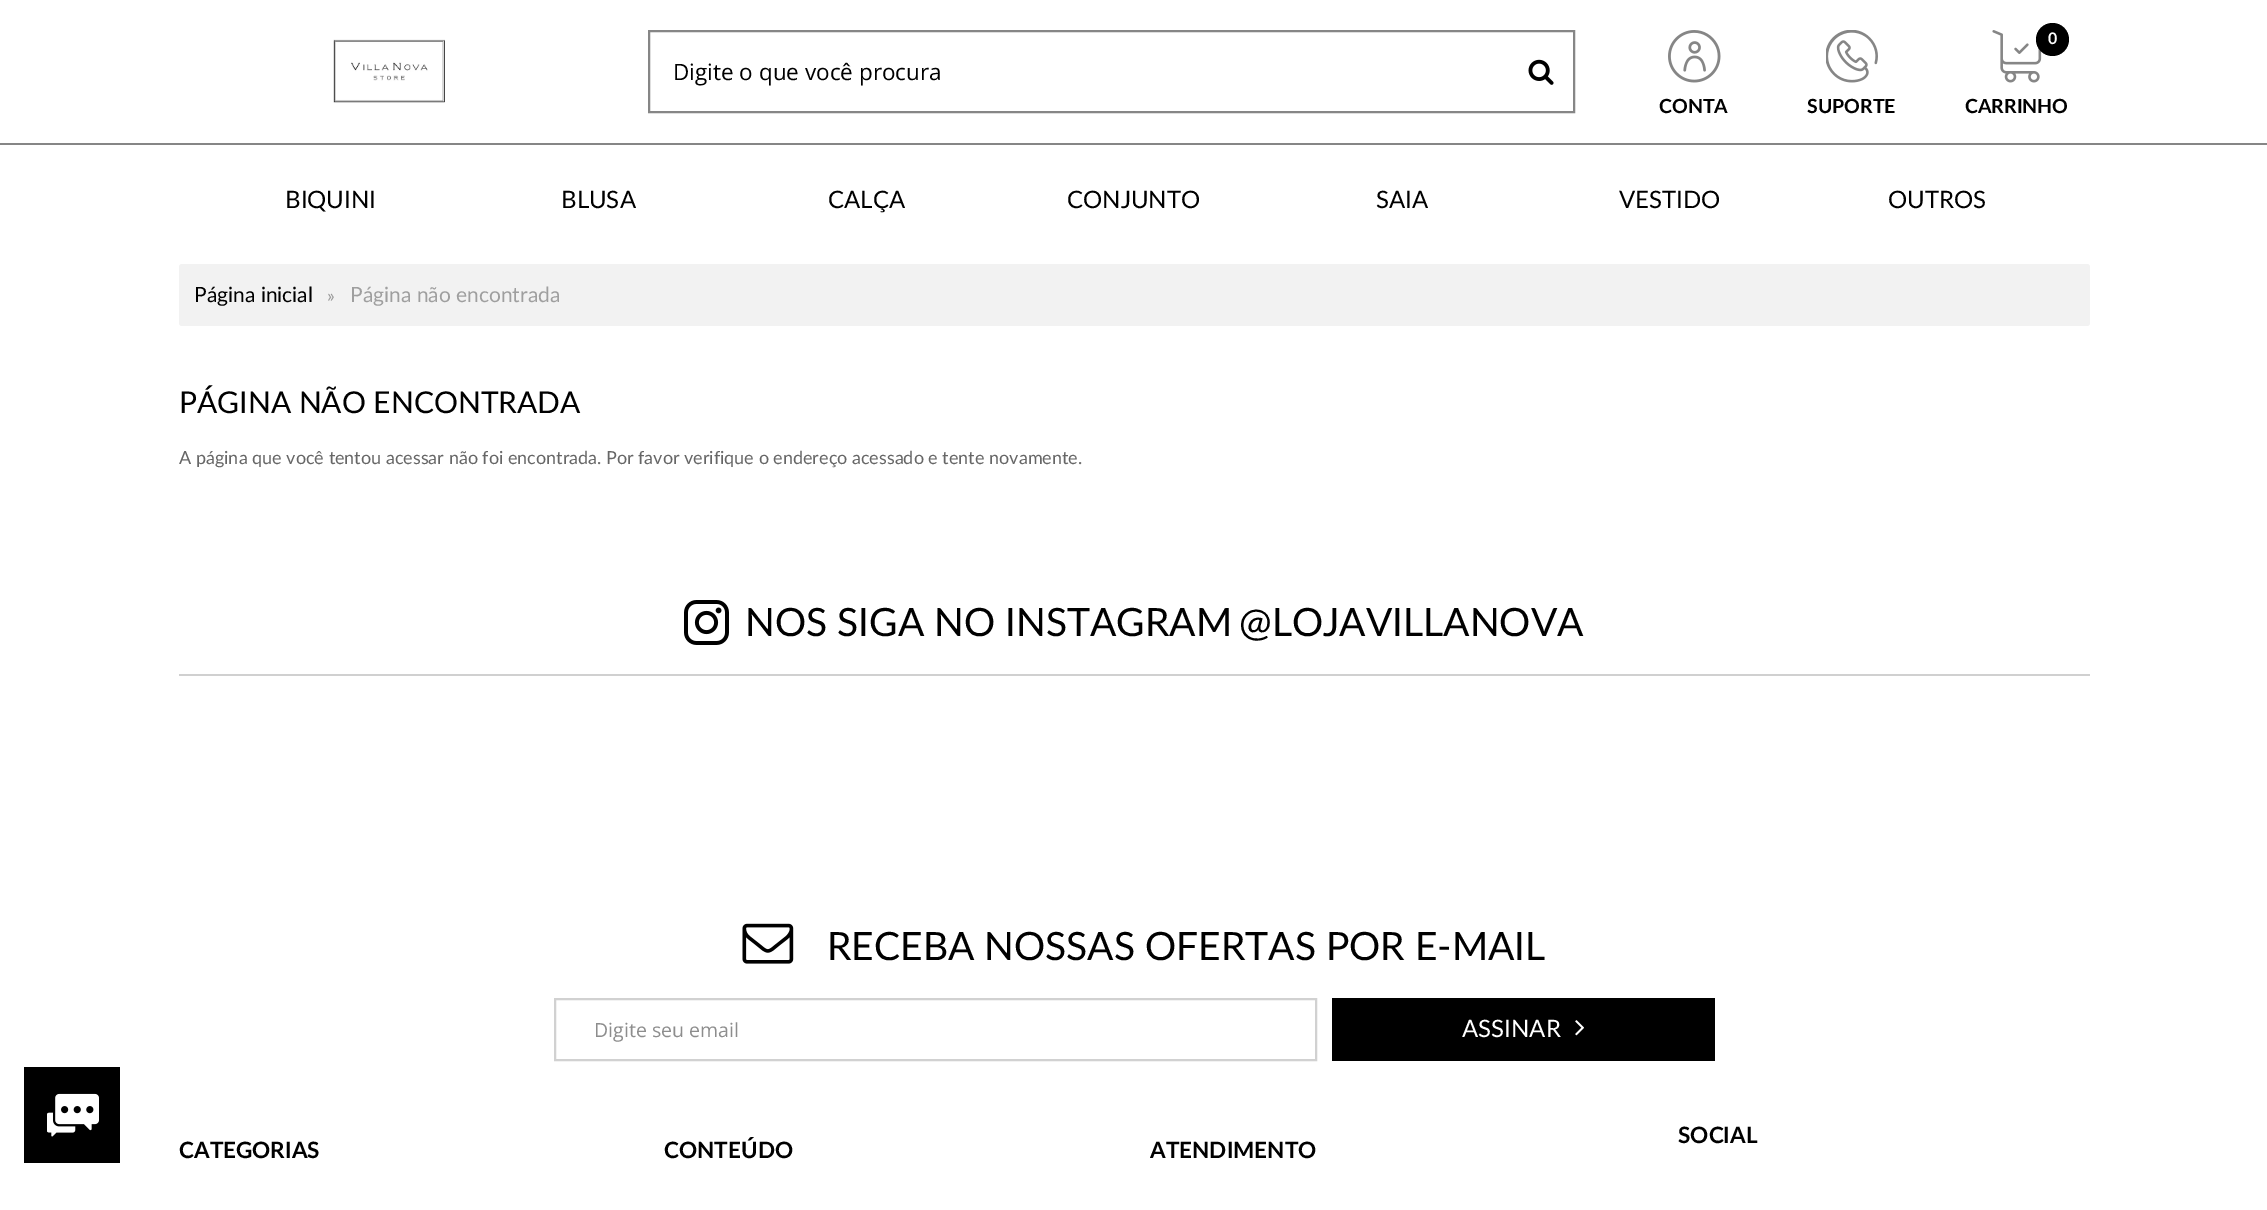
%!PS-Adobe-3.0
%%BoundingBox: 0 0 2267 1210
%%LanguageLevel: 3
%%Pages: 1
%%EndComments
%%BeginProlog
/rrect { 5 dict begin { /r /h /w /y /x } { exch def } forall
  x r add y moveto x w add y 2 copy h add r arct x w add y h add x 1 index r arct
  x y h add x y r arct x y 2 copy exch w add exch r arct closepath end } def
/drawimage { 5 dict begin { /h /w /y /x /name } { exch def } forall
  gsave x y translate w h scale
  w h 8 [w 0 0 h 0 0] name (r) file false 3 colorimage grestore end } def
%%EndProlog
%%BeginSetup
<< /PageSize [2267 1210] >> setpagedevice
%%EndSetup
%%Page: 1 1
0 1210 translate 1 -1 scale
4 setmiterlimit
1 setgray
0 0 2267 1210 rectfill
0 setgray
24 1067 96 96 rectfill
(images/1.raw) 47 1093 52 44 drawimage
(images/2.raw) 333 39 112 64 drawimage
0.525 setgray
2 setlinewidth
649 31 925 81 rectstroke
(images/3.raw) 1528 59 26 26 drawimage
(images/4.raw) 1668 30 53 53 drawimage
(images/5.raw) 1826 30 52 53 drawimage
(images/6.raw) 1992 30 50 53 drawimage
0 setgray
newpath 2052.5 39.5 16.5 0 360 arc closepath fill
0.525 setgray
0 143 2267 2 rectfill
0.949 setgray
179 264 1911 62 3 rrect fill
(images/7.raw) 684 600 45 45 drawimage
0.816 setgray
179 674 1911 2 rectfill
(images/8.raw) 742 923 52 41 drawimage
0.82 setgray
555 999 761 61 rectstroke
0 setgray
1332 998 383 63 rectfill
(images/9.raw) 1575 1020 9 16 drawimage
/OpenSans-Regular [22.5 0 0 -22.5 0 0] selectfont
673 80 moveto (Digite o que você procura) show
/Lato-Bold [19.5 0 0 -19.5 0 0] selectfont
1659 113 moveto (CONTA) show
1807 113 moveto (SUPORTE) show
/Lato-Bold [16 0 0 -16 0 0] selectfont
1 setgray
2048 44 moveto (0) show
/Lato-Bold [19.5 0 0 -19.5 0 0] selectfont
0 setgray
1965 113 moveto (CARRINHO) show
/Lato-Regular [24 0 0 -24 0 0] selectfont
285 208 moveto (BIQUINI) show
561 208 moveto (BLUSA) show
828 208 moveto (CALÇA) show
1067 208 moveto (CONJUNTO) show
1376 208 moveto (SAIA) show
1619 208 moveto (VESTIDO) show
1888 208 moveto (OUTROS) show
/Lato-Regular [21 0 0 -21 0 0] selectfont
194 302 moveto (Página inicial) show
/Lato-Regular [18 0 0 -18 0 0] selectfont
0.6 setgray
327 302 moveto (») show
/Lato-Regular [21 0 0 -21 0 0] selectfont
0.624 setgray
350 302 moveto (Página não encontrada) show
/Lato-Regular [30 0 0 -30 0 0] selectfont
0 setgray
179 413 moveto (PÁGINA NÃO ENCONTRADA) show
/Lato-Regular [18 0 0 -18 0 0] selectfont
0.4 setgray
179 464 moveto (A página que você tentou acessar não foi encontrada. Por favor verifique o endereço acessado e tente novamente.) show
/Lato-Regular [39 0 0 -39 0 0] selectfont
0 setgray
745 636 moveto (NOS SIGA NO INSTAGRAM) show
1239 636 moveto (@LOJAVILLANOVA) show
827 960 moveto (RECEBA NOSSAS OFERTAS POR E-MAIL) show
/OpenSans-Regular [19.5 0 0 -19.5 0 0] selectfont
0.553 setgray
594 1037 moveto (Digite seu email) show
/Lato-Regular [24 0 0 -24 0 0] selectfont
1 setgray
1462 1037 moveto (ASSINAR) show
/Lato-Bold [22.5 0 0 -22.5 0 0] selectfont
0 setgray
1678 1143 moveto (SOCIAL) show
179 1158 moveto (CATEGORIAS) show
664 1158 moveto (CONTEÚDO) show
1150 1158 moveto (ATENDIMENTO) show
showpage
%%EOF
